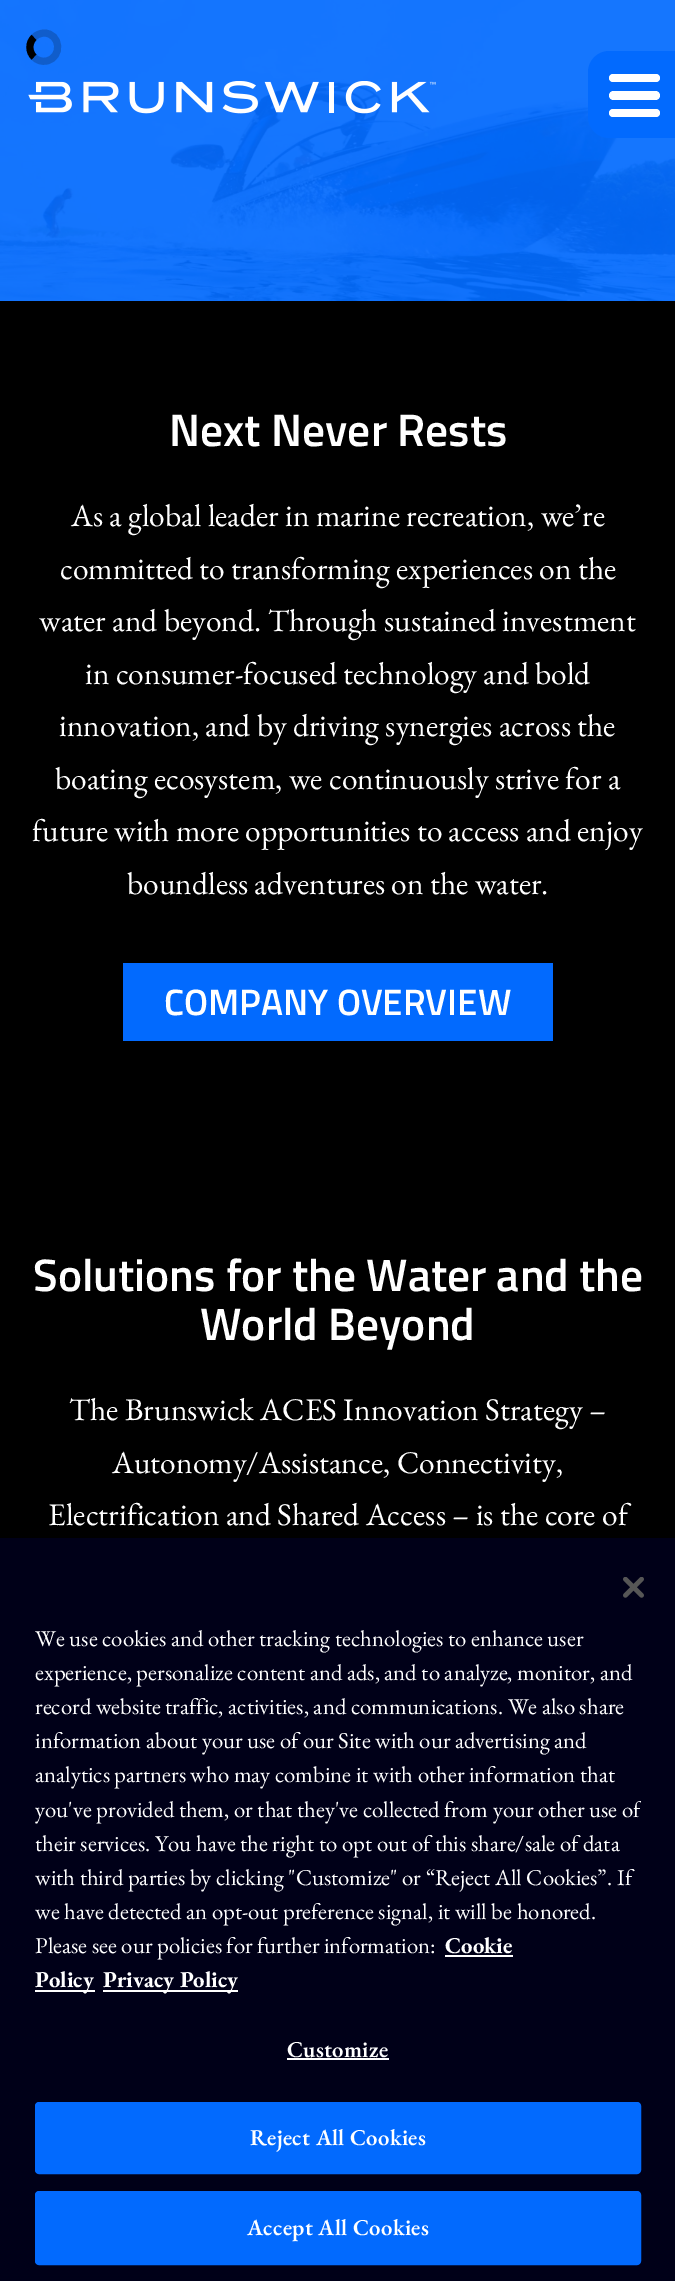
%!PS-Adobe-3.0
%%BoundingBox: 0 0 675 2281
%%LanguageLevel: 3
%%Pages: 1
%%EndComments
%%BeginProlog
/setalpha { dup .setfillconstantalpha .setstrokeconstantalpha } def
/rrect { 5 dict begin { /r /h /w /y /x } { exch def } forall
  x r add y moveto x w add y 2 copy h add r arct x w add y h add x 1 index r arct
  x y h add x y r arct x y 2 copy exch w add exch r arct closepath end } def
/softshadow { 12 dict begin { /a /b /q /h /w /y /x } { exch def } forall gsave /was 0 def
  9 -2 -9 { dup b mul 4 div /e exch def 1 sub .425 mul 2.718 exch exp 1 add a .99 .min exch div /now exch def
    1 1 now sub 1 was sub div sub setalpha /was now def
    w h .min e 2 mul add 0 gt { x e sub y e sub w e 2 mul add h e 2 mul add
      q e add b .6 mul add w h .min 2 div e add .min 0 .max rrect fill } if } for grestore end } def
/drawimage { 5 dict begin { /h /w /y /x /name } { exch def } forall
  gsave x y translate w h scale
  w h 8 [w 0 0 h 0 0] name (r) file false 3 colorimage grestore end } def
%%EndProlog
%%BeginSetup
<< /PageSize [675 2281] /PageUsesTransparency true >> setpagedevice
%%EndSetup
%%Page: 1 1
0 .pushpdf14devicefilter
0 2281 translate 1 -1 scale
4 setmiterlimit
0 setgray
0 0 675 2281 rectfill
(images/1.raw) 0 0 675 301 drawimage
0.063 0.365 0.796 setrgbcolor
7 setlinewidth
newpath 34 37.5 moveto 36.5 34.5 40 33.5 44 33 curveto 60.5 33 63 57.5 46.5 61 curveto 42 62 37 60.5 34 57 curveto stroke
0 setgray
newpath 34 57 moveto 28.5 52 28.5 42.5 34 37.5 curveto stroke
(images/2.raw) 28 81 408 33 drawimage
0.008 0.416 0.996 setrgbcolor
newpath 609 51 moveto 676 51 lineto 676 138 lineto 609 138 lineto 597.5 138 588 128.5 588 117 curveto 588 72 lineto 588 60.5 597.5 51 609 51 curveto closepath fill
1 setgray
609 74 51 8 4 rrect fill
609 91 51 9 4.5 rrect fill
609 109 51 8 4 rrect fill
0.008 0.416 0.996 setrgbcolor
123 963 430 78 rectfill
0 setgray
0 1538 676 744 0 16 0.2 softshadow
0 0 0.094 setrgbcolor
0 1538 675 743 rectfill
(images/3.raw) 623 1577 21 21 drawimage
1 setgray
445 1955 68 2 rectfill
35 1990 60 2 rectfill
103 1990 135 2 rectfill
287 2058 102 2 rectfill
0.008 0.416 0.996 setrgbcolor
36 2103 604 70 3 rrect gsave fill grestore
2 setlinewidth
stroke
36 2192 604 72 3 rrect gsave fill grestore
stroke
/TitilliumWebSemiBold-SemiBold [45.5 0 0 -45.5 0 0] selectfont
1 setgray
169 446 moveto (Next Never Rests) show
/EBGaramond-Regular [31.5 0 0 -31.5 0 0] selectfont
71 526 moveto (As a global leader in marine recreation, we’re) show
60 579 moveto (committed to transforming experiences on the) show
39 631 moveto (water and beyond. Through sustained investment) show
85 684 moveto (in consumer-focused technology and bold) show
59 736 moveto (innovation, and by driving synergies across the) show
55 789 moveto (boating ecosystem, we continuously strive for a) show
32 841 moveto (future with more opportunities to access and enjoy) show
127 894 moveto (boundless adventures on the water.) show
/TitilliumWebSemiBold-SemiBold [36.75 0 0 -36.75 0 0] selectfont
164 1015 moveto (COMPANY OVERVIEW) show
/TitilliumWebSemiBold-SemiBold [45.5 0 0 -45.5 0 0] selectfont
33 1291 moveto (Solutions for the Water and the) show
200 1340 moveto (World Beyond) show
/EBGaramond-Regular [31.5 0 0 -31.5 0 0] selectfont
69 1420 moveto (The Brunswick ACES Innovation Strategy –) show
112 1473 moveto (Autonomy/Assistance, Connectivity,) show
48 1525 moveto (Electrification and Shared Access – is the core of) show
/EBGaramond-Regular [22.75 0 0 -22.75 0 0] selectfont
35 1646 moveto (We use cookies and other tracking technologies to enhance user) show
35 1680 moveto (experience, personalize content and ads, and to analyze, monitor, and) show
35 1714 moveto (record website traffic, activities, and communications. We also share) show
35 1748 moveto (information about your use of our Site with our advertising and) show
35 1782 moveto (analytics partners who may combine it with other information that) show
gsave
35 1622 606 375 rectclip
35 1817 moveto (you've provided them, or that they've collected from your other use of) show
grestore
35 1851 moveto (their services. You have the right to opt out of this share/sale of data) show
35 1885 moveto (with third parties by clicking "Customize" or “Reject All Cookies”. If) show
35 1919 moveto (we have detected an opt-out preference signal, it will be honored.) show
35 1953 moveto (Please see our policies for further information:) show
/EBGaramond-Bold [22.75 0 0 -22.75 0 0] selectfont
445 1953 moveto (Cookie) show
35 1987 moveto (Policy) show
103 1987 moveto (Privacy Policy) show
/EBGaramond-SemiBold [22.75 0 0 -22.75 0 0] selectfont
287 2057 moveto 0.25 0 (Customize) ashow
250 2145 moveto 0.25 0 (Reject All Cookies) ashow
247 2235 moveto 0.25 0 (Accept All Cookies) ashow
.poppdf14devicefilter showpage
%%EOF
